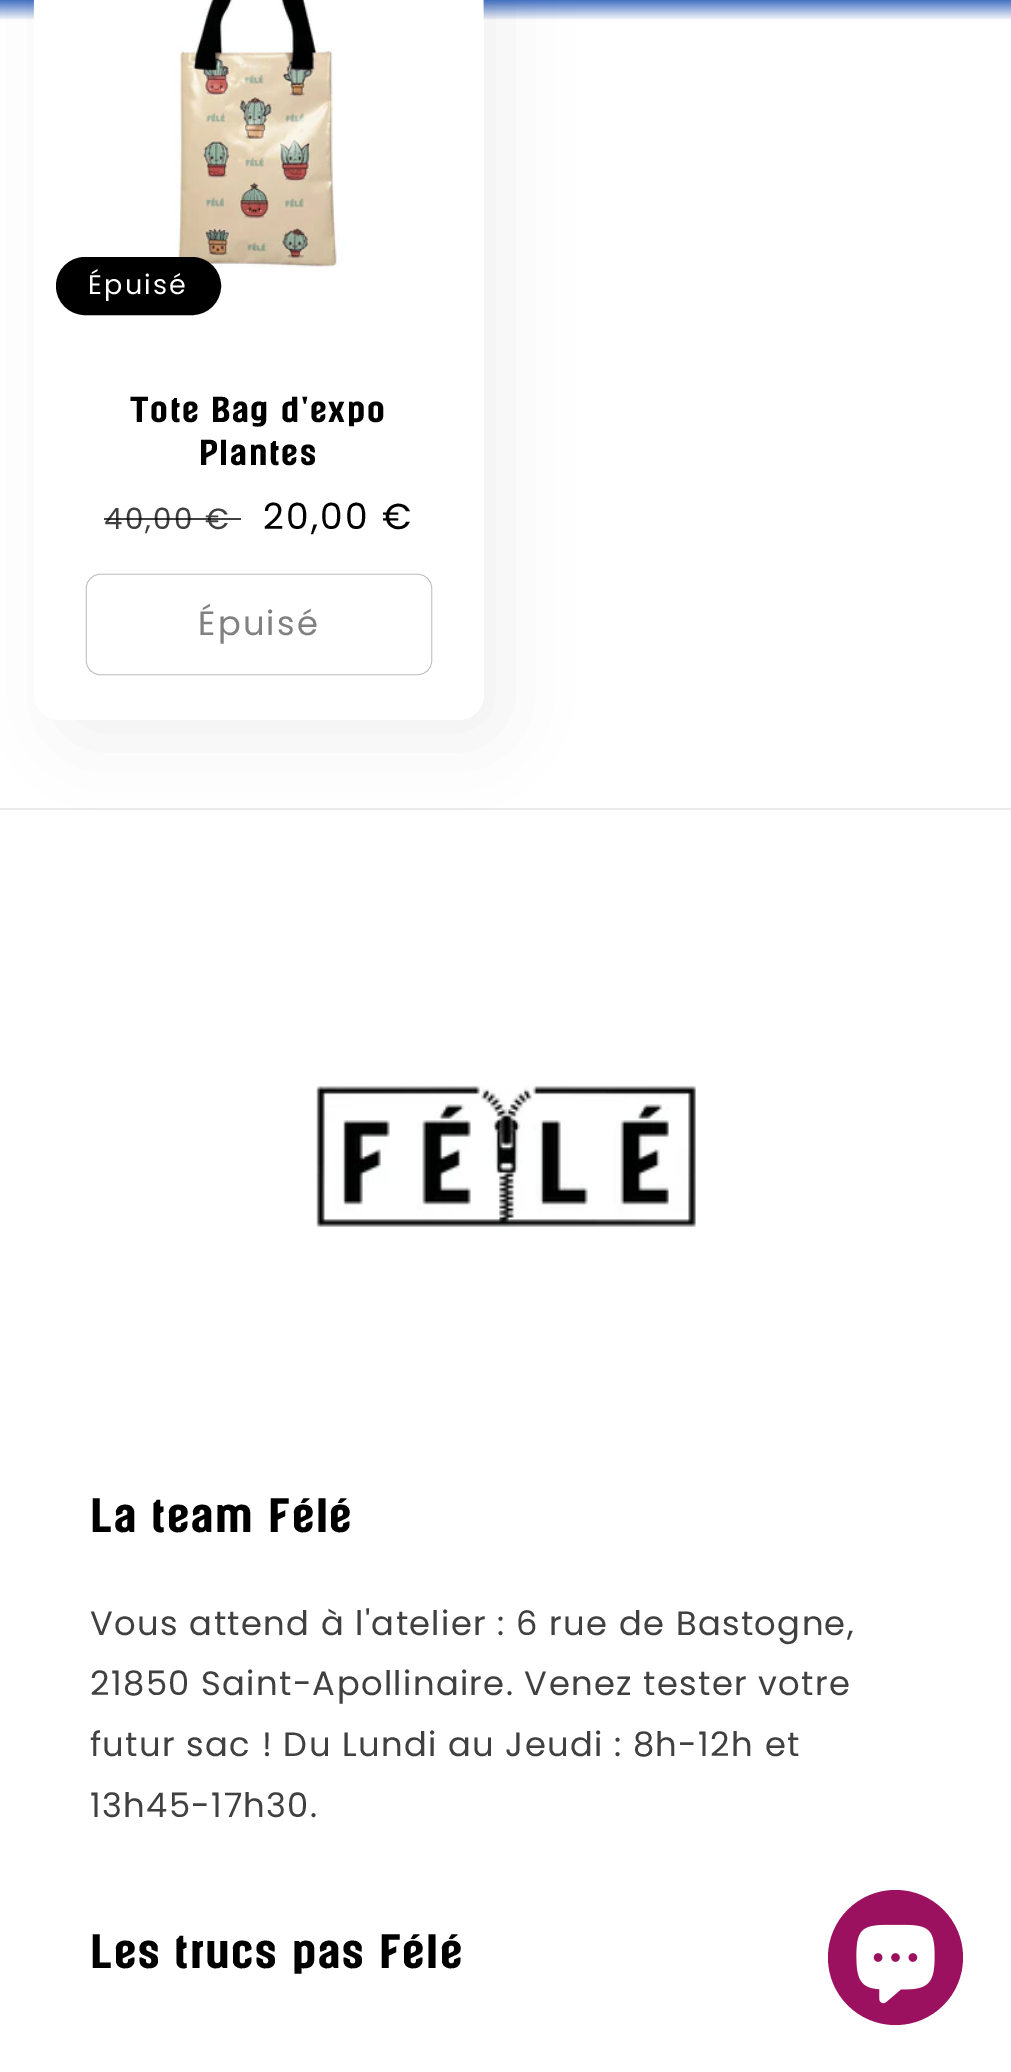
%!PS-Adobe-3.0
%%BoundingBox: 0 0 1011 2072
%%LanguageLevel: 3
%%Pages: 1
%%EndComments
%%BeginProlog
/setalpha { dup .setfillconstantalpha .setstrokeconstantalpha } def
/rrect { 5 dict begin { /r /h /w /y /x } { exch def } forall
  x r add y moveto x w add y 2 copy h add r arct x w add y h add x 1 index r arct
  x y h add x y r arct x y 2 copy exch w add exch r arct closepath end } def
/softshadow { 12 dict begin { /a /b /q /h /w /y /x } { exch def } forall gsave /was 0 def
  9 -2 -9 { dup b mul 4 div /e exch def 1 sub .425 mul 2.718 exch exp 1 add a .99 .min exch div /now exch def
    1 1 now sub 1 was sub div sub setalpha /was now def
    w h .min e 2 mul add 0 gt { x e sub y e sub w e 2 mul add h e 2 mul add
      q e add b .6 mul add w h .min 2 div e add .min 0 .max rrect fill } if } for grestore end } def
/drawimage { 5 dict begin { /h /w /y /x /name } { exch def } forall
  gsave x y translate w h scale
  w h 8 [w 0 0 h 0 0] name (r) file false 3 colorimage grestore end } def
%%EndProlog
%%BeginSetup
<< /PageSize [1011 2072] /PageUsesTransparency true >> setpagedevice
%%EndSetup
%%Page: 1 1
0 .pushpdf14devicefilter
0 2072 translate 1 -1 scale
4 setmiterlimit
1 setgray
0 0 1011 2072 rectfill
gsave newpath 0 0 moveto 1011 0 lineto 1011 20 lineto 0 20 lineto closepath clip newpath
<< /ShadingType 2 /ColorSpace /DeviceRGB /Coords [506 0 506 2072] /Extend [true true] /Function << /FunctionType 3 /Domain [0 1] /Functions [<< /FunctionType 2 /Domain [0 1] /C0 [0.267 0.447 0.769] /C1 [1 1 1] /N 1 >> << /FunctionType 2 /Domain [0 1] /C0 [1 1 1] /C1 [1 1 1] /N 1 >>] /Bounds [0.01] /Encode [0 1 0 1] >> >> shfill grestore
0.922 setgray
0 808 1011 2 rectfill
0 setgray
56 -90 450 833 27 39.5 0.05 softshadow
gsave newpath 34 0 moveto 484 0 lineto 484 693 lineto 484 708 472 720 457 720 curveto 61 720 lineto 46 720 34 708 34 693 curveto closepath clip newpath
<< /ShadingType 2 /ColorSpace /DeviceRGB /Coords [506 0 506 2072] /Extend [true true] /Function << /FunctionType 3 /Domain [0 1] /Functions [<< /FunctionType 2 /Domain [0 1] /C0 [0.267 0.447 0.769] /C1 [1 1 1] /N 1 >> << /FunctionType 2 /Domain [0 1] /C0 [1 1 1] /C1 [1 1 1] /N 1 >>] /Bounds [0.01] /Encode [0 1 0 1] >> >> shfill grestore
(images/1.raw) 33 0 451 268 drawimage
57 258 163 56 28 rrect gsave fill grestore
2 setlinewidth
stroke
0.725 setgray
0.7 setlinewidth
86.35 574.35 345.3 100.3 13.65 rrect stroke
(images/2.raw) 316 1085 380 144 drawimage
0.608 0.067 0.376 setrgbcolor
newpath 895.5 1957.5 67.5 0 360 arc closepath fill
(images/3.raw) 856 1924 79 80 drawimage
/Poppins-Regular [27 0 0 -27 0 0] selectfont
1 setgray
88 294 moveto 2.25 0 (Épuisé) ashow
/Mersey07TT-SemiBold [35 0 0 -35 0 0] selectfont
0 setgray
130 422 moveto 1.75 0 (Tote Bag d'expo) ashow
199 465 moveto 1.75 0 (Plantes) ashow
/Poppins-Regular [29.25 0 0 -29.25 0 0] selectfont
0.251 setgray
104 529 moveto 2.25 0 (40,00 €) ashow
0.75 setalpha
0 setgray
104 518 137 2 rectfill
/Poppins-Regular [36 0 0 -36 0 0] selectfont
1 setalpha
263 529 moveto 2.25 0 (20,00 €) ashow
/Poppins-Regular [33.75 0 0 -33.75 0 0] selectfont
0.502 setgray
198 635 moveto 2.25 0 (Épuisé) ashow
/Mersey07TT-SemiBold [46.75 0 0 -46.75 0 0] selectfont
0 setgray
90 1532 moveto 1.75 0 (La team Félé) ashow
/Poppins-Regular [33.75 0 0 -33.75 0 0] selectfont
0.251 setgray
90 1635 moveto 1.35 0 (Vous attend à l'atelier : 6 rue de Bastogne,) ashow
90 1695 moveto 1.35 0 (21850 Saint-Apollinaire. Venez tester votre) ashow
90 1756 moveto 1.35 0 (futur sac ! Du Lundi au Jeudi : 8h-12h et) ashow
90 1817 moveto 1.35 0 (13h45-17h30.) ashow
/Mersey07TT-SemiBold [46.75 0 0 -46.75 0 0] selectfont
0 setgray
90 1968 moveto 1.75 0 (Les trucs pas Félé) ashow
.poppdf14devicefilter showpage
%%EOF
